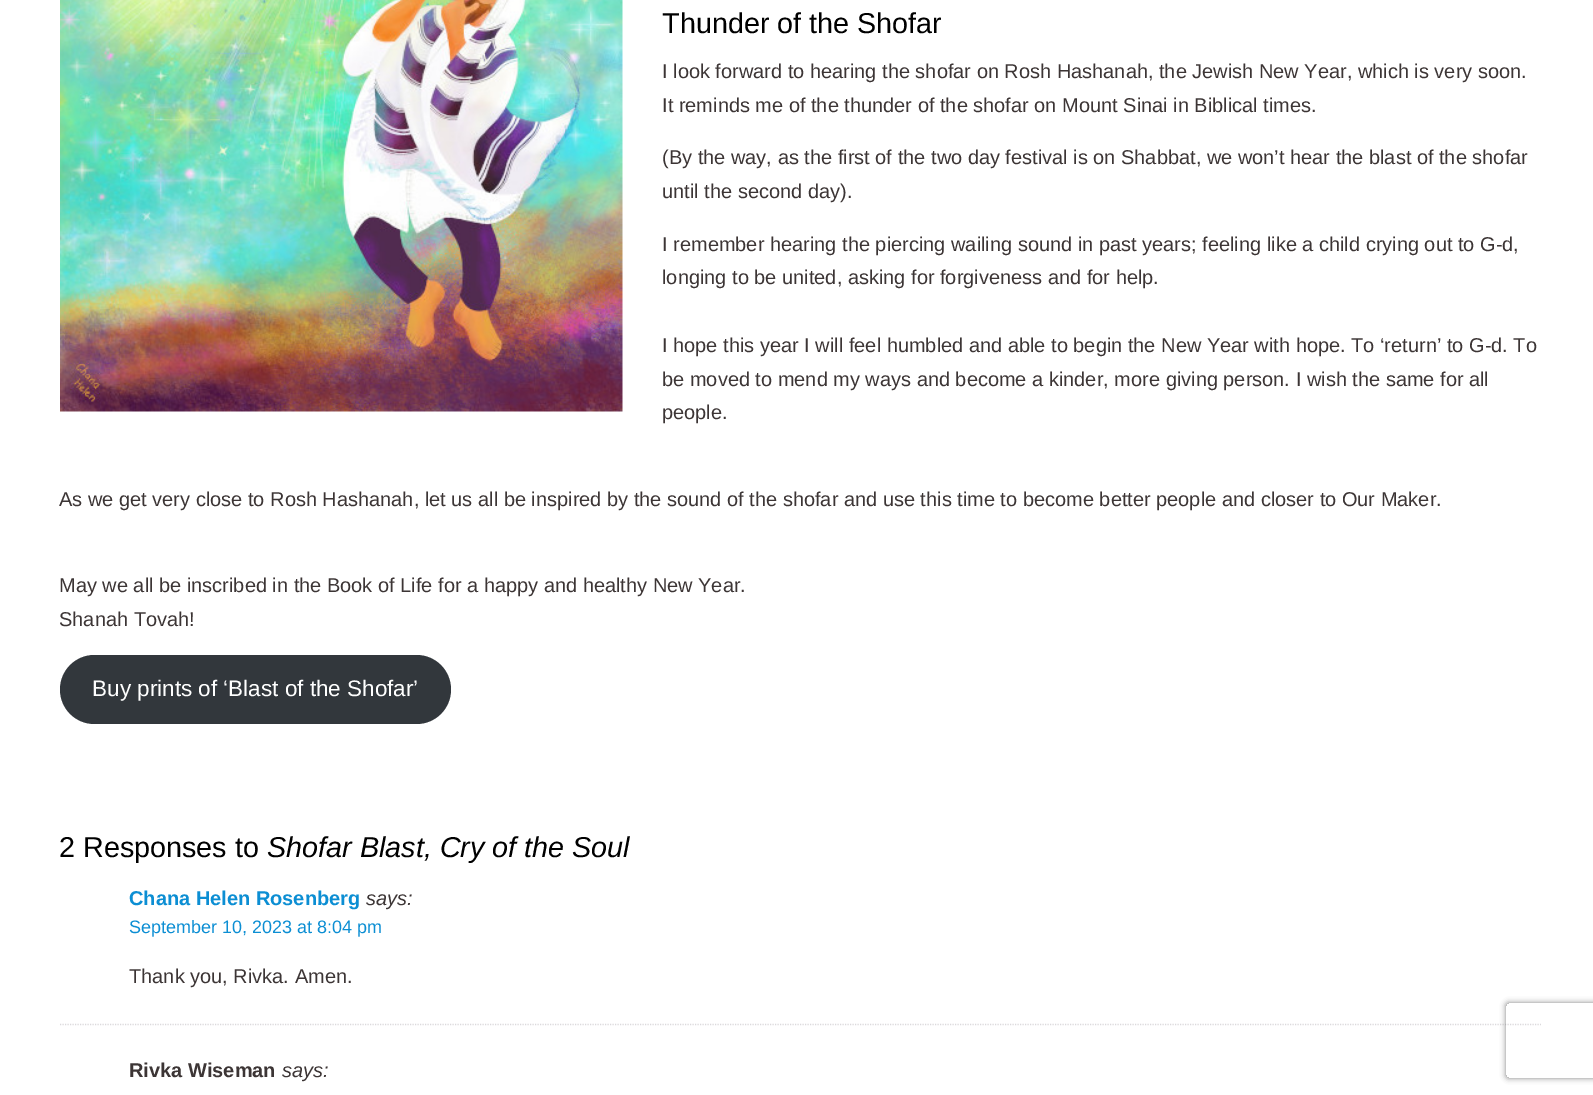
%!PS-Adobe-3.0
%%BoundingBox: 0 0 1593 1095
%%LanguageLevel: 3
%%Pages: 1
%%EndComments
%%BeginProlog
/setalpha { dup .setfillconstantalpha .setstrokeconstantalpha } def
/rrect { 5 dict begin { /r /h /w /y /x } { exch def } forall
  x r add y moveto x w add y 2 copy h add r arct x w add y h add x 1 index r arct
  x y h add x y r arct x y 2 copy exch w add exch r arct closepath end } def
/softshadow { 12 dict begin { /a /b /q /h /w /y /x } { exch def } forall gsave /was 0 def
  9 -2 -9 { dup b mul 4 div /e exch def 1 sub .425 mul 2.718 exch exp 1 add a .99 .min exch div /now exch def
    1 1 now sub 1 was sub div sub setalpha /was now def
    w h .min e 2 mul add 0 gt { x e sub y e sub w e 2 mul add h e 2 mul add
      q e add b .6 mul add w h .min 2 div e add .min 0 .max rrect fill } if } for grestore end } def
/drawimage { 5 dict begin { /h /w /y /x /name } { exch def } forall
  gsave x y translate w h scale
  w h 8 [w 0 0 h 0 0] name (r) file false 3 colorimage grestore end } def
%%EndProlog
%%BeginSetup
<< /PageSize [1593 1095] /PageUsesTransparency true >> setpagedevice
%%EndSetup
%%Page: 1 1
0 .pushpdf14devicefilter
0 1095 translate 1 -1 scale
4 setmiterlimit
1 setgray
0 0 1593 1095 rectfill
(images/1.raw) 60 0 563 412 drawimage
0.196 0.216 0.235 setrgbcolor
60 655 391 69 34.5 rrect fill
0.859 0.851 0.863 setrgbcolor
1.2 setlinewidth
[1.25 1.25] 0 setdash
newpath 60 1024.5 moveto 1541 1024.5 lineto stroke
gsave
newpath 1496 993 moveto 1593 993 lineto 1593 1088 lineto 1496 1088 lineto closepath 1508.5 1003 moveto 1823.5 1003 lineto 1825 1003 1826 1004 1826 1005.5 curveto 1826 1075.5 lineto 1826 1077 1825 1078 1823.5 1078 curveto 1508.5 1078 lineto 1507 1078 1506 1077 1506 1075.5 curveto 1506 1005.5 lineto 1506 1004 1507 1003 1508.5 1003 curveto closepath eoclip newpath
0.502 setgray
1506 1003 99 75 2.5 3 1 softshadow
grestore
/LiberationSans-Regular [28.75 0 0 -28.75 0 0] selectfont
0 setgray
662 33 moveto (Thunder of the Shofar) show
/LiberationSans-Regular [20 0 0 -20 0 0] selectfont
0.235 0.208 0.208 setrgbcolor
662 78 moveto (I look forward to hearing the shofar on Rosh Hashanah, the Jewish New Year, which is very soon.) show
662 112 moveto (It reminds me of the thunder of the shofar on Mount Sinai in Biblical times.) show
662 164 moveto (\(By the way, as the first of the two day festival is on Shabbat, we won’t hear the blast of the shofar) show
662 198 moveto (until the second day\).) show
662 251 moveto (I remember hearing the piercing wailing sound in past years; feeling like a child crying out to G-d,) show
662 284 moveto (longing to be united, asking for forgiveness and for help.) show
662 352 moveto (I hope this year I will feel humbled and able to begin the New Year with hope. To ‘return’ to G-d. To) show
662 386 moveto (be moved to mend my ways and become a kinder, more giving person. I wish the same for all) show
662 419 moveto (people.) show
59 506 moveto (As we get very close to Rosh Hashanah, let us all be inspired by the sound of the shofar and use this time to become better people and closer to Our Maker.) show
59 592 moveto (May we all be inscribed in the Book of Life for a happy and healthy New Year.) show
59 626 moveto (Shanah Tovah!) show
/LiberationSans-Regular [22.5 0 0 -22.5 0 0] selectfont
1 setgray
92 696 moveto (Buy prints of ‘Blast of the Shofar’) show
/LiberationSans-Regular [28.75 0 0 -28.75 0 0] selectfont
0 setgray
59 857 moveto (2 Responses to) show
/LiberationSans-Italic [28.75 0 0 -28.75 0 0] selectfont
267 857 moveto (Shofar Blast, Cry of the Soul) show
/LiberationSans-Bold [20 0 0 -20 0 0] selectfont
0.047 0.557 0.827 setrgbcolor
129 905 moveto (Chana Helen Rosenberg) show
/LiberationSans-Italic [20 0 0 -20 0 0] selectfont
0.235 0.208 0.208 setrgbcolor
366 905 moveto (says:) show
/LiberationSans-Regular [18 0 0 -18 0 0] selectfont
0.047 0.557 0.827 setrgbcolor
129 933 moveto (September 10, 2023 at 8:04 pm) show
/LiberationSans-Regular [20 0 0 -20 0 0] selectfont
0.235 0.208 0.208 setrgbcolor
129 983 moveto (Thank you, Rivka. Amen.) show
/LiberationSans-Bold [20 0 0 -20 0 0] selectfont
129 1077 moveto (Rivka Wiseman) show
/LiberationSans-Italic [20 0 0 -20 0 0] selectfont
282 1077 moveto (says:) show
.poppdf14devicefilter showpage
%%EOF
